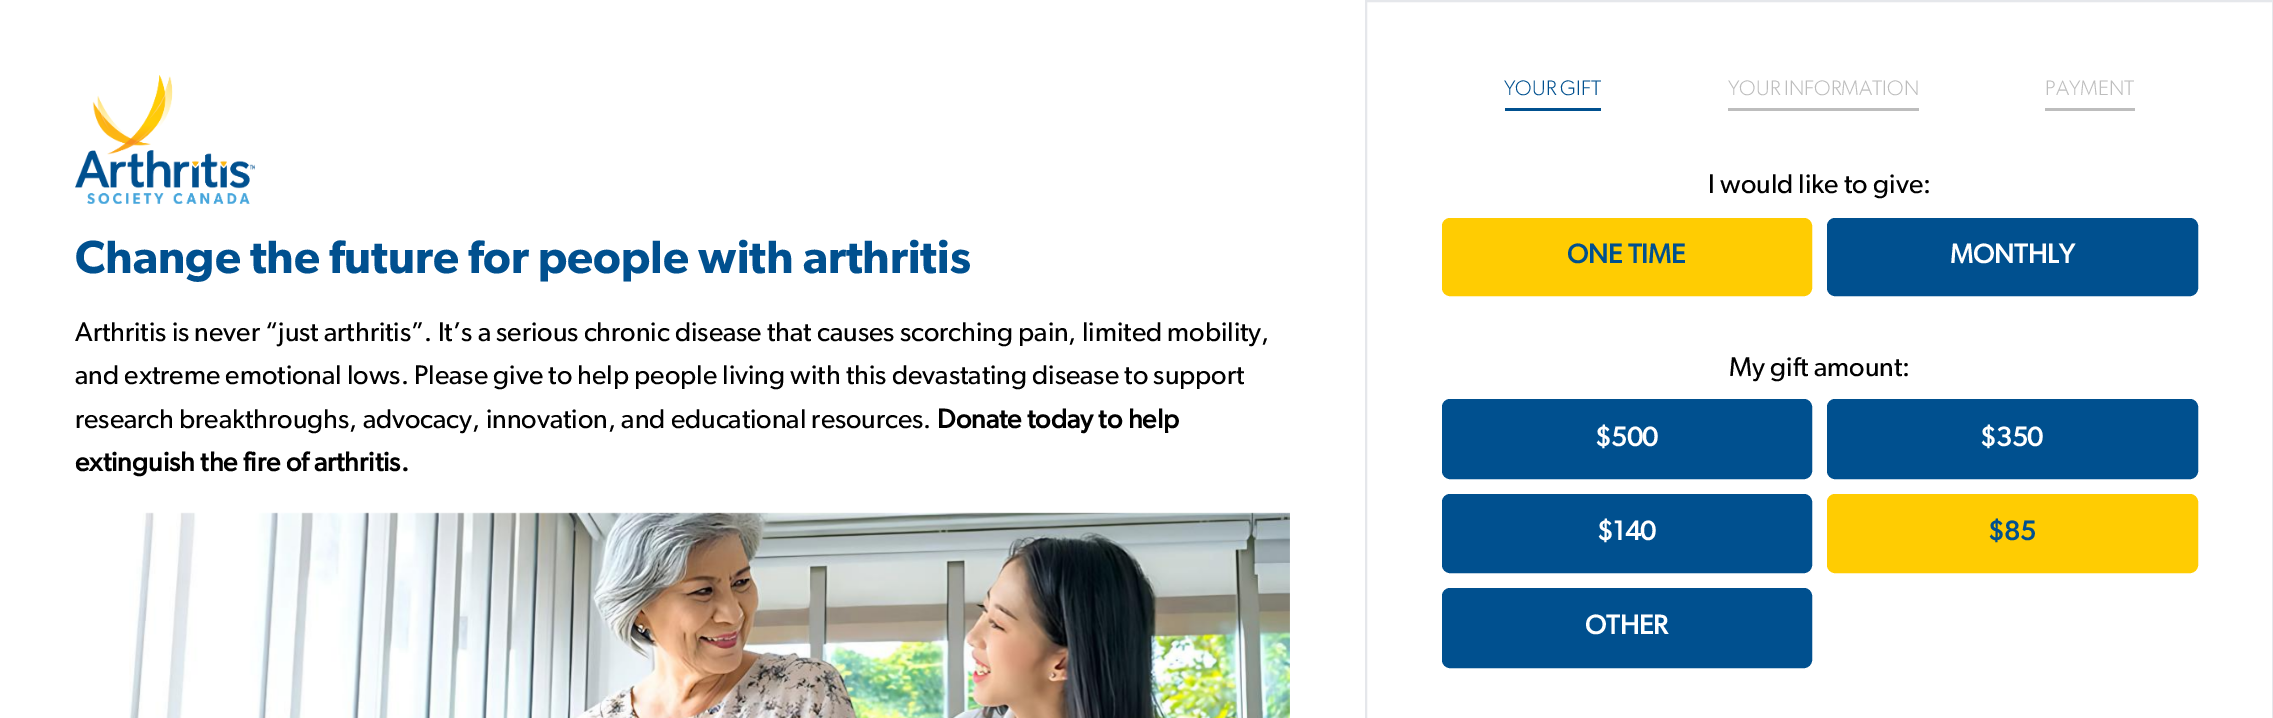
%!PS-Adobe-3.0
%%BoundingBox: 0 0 2273 718
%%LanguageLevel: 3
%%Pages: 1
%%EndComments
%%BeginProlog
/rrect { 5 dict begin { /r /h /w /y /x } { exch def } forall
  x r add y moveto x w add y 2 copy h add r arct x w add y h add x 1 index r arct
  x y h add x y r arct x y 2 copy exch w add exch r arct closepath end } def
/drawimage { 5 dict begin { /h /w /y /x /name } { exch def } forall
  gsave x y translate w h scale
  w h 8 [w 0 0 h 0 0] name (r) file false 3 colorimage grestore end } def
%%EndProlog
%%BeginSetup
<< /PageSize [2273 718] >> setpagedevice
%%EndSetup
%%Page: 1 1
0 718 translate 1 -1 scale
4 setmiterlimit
1 setgray
0 0 2273 718 rectfill
(images/1.raw) 75 75 180 129 drawimage
(images/2.raw) 129 512 1161 206 drawimage
0.898 0.906 0.922 setrgbcolor
2 setlinewidth
1366 1 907 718 rectstroke
0 0.314 0.561 setrgbcolor
1505 108 96 3 rectfill
0.741 setgray
1728 108 191 3 rectfill
2045 108 90 3 rectfill
1 0.8 0.008 setrgbcolor
1443.5 219.5 367 75 6.5 rrect gsave fill grestore
3 setlinewidth
stroke
0 0.314 0.561 setrgbcolor
1828.5 219.5 368 75 6.5 rrect gsave fill grestore
stroke
1443.5 400.5 367 77 6.5 rrect gsave fill grestore
stroke
1828.5 400.5 368 77 6.5 rrect gsave fill grestore
stroke
1443.5 495.5 367 76 6.5 rrect gsave fill grestore
stroke
1 0.8 0.008 setrgbcolor
1828.5 495.5 368 76 6.5 rrect gsave fill grestore
stroke
0 0.314 0.561 setrgbcolor
1443.5 589.5 367 77 6.5 rrect gsave fill grestore
stroke
/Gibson-SemiBold [46.6 0 0 -46.6 0 0] selectfont
75 273 moveto (Change the future for people with arthritis) show
/Gibson-Regular [27 0 0 -27 0 0] selectfont
0 setgray
75 341 moveto (Arthritis is never “just arthritis”. It’s a serious chronic disease that causes scorching pain, limited mobility,) show
75 384 moveto (and extreme emotional lows. Please give to help people living with this devastating disease to support) show
75 428 moveto (research breakthroughs, advocacy, innovation, and educational resources.) show
/Gibson-Bold [27 0 0 -27 0 0] selectfont
937 428 moveto (Donate today to help) show
75 471 moveto (extinguish the fire of arthritis.) show
/Gibson-Light [21 0 0 -21 0 0] selectfont
0 0.314 0.561 setrgbcolor
1504 95 moveto (YOUR GIFT) show
0.741 setgray
1728 95 moveto (YOUR INFORMATION) show
2045 95 moveto (PAYMENT) show
/Gibson-Regular [27 0 0 -27 0 0] selectfont
0 setgray
1708 193 moveto (I would like to give:) show
/Gibson-Bold [27 0 0 -27 0 0] selectfont
0 0.314 0.561 setrgbcolor
1567 263 moveto (ONE TIME) show
1 setgray
1950 263 moveto (MONTHLY) show
/Gibson-Regular [27 0 0 -27 0 0] selectfont
0 setgray
1729 376 moveto (My gift amount:) show
/Gibson-Bold [27 0 0 -27 0 0] selectfont
1 setgray
1595 446 moveto ($500) show
1980 446 moveto ($350) show
1597 540 moveto ($140) show
0 0.314 0.561 setrgbcolor
1988 540 moveto ($85) show
1 setgray
1585 634 moveto (OTHER) show
showpage
%%EOF
